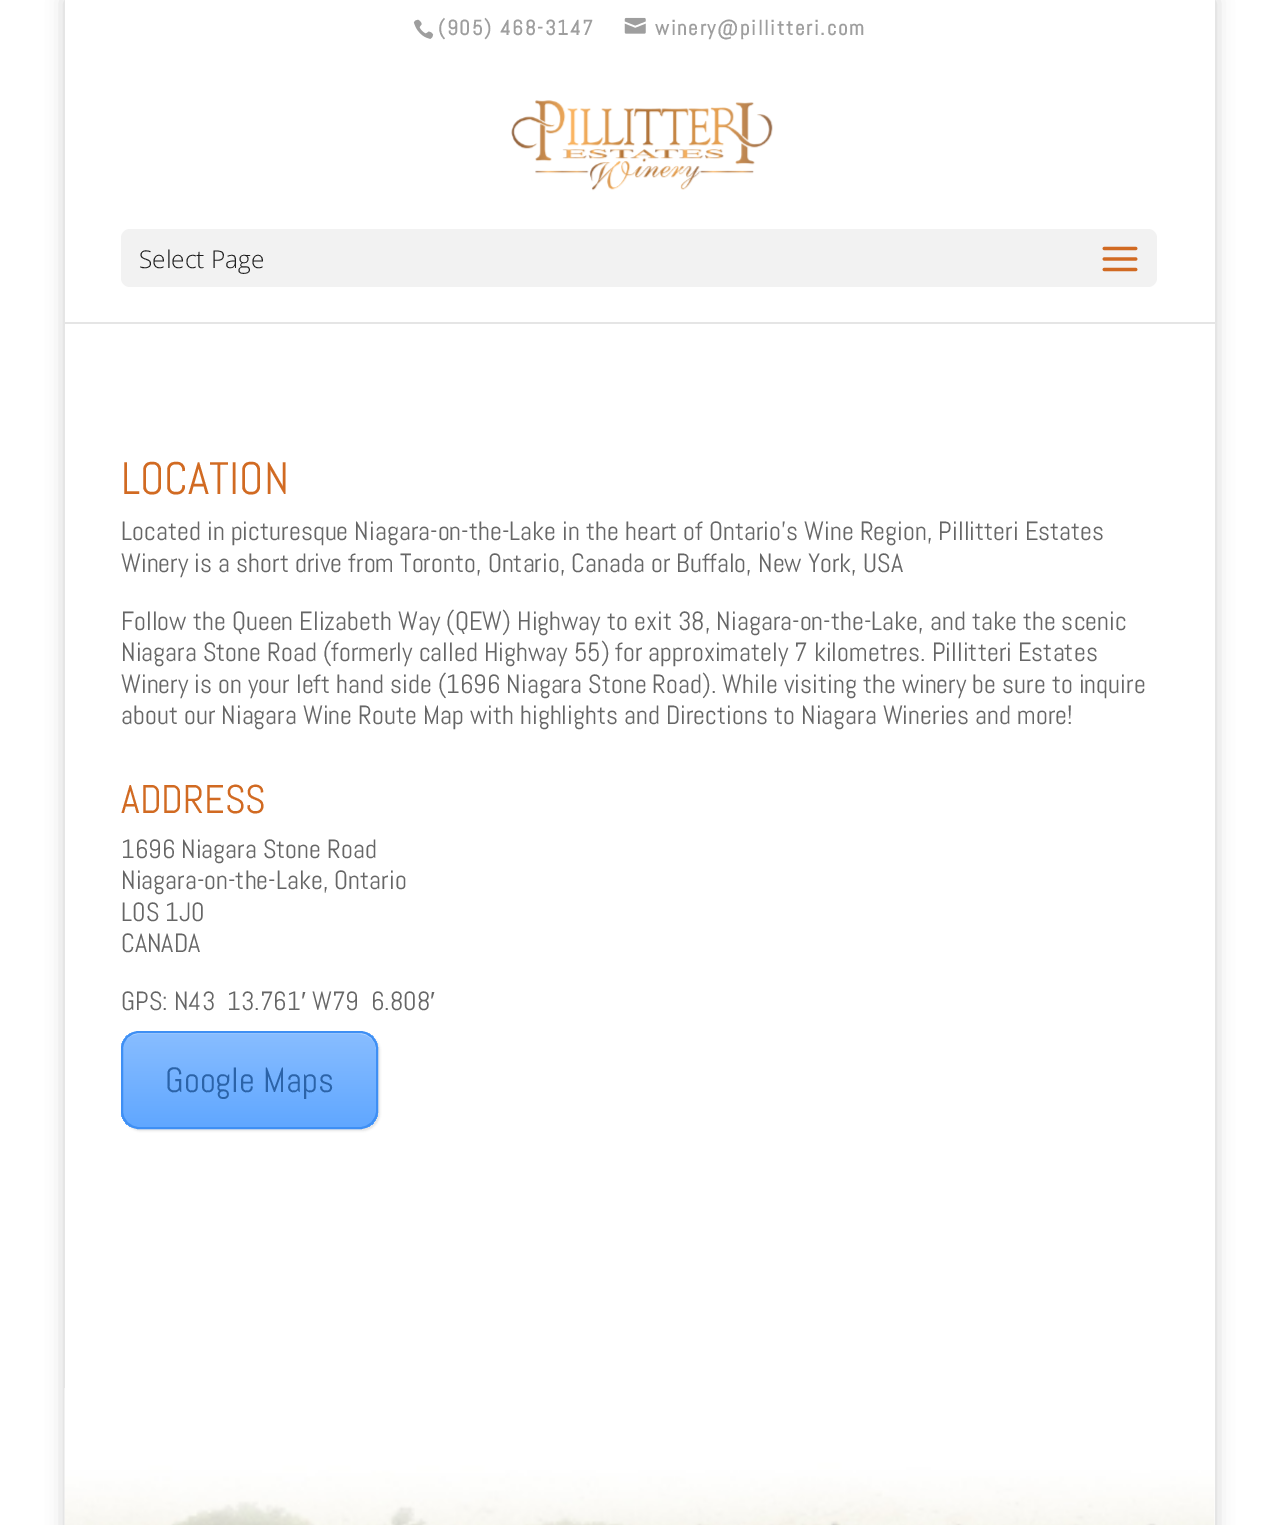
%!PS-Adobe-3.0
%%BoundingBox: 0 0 1277 1525
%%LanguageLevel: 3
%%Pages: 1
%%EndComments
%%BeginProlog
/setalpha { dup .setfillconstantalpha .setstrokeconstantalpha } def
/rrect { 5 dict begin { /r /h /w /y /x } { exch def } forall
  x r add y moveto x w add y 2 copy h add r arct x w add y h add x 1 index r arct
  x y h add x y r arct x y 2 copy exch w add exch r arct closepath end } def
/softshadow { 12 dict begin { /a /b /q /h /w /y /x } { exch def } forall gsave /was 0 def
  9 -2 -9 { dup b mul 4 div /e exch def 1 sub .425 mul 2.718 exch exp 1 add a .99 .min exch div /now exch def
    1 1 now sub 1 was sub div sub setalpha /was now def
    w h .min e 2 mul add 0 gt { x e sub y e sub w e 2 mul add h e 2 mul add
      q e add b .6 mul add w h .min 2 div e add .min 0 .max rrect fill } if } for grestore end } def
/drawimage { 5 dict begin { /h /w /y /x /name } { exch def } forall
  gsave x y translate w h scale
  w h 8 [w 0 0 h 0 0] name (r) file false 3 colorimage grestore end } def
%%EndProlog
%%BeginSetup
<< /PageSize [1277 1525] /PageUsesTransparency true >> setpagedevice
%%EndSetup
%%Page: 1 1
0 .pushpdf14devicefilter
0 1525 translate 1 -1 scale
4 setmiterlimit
1 setgray
0 0 1277 1525 rectfill
0 setgray
65 0 1150 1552 0 9 0.2 softshadow
1 setgray
65 0 1150 54 rectfill
(images/1.raw) 413 19 21 20 drawimage
(images/2.raw) 624 17 22 17 drawimage
65 322 1150 1066 rectfill
0.1 setalpha
0 setgray
newpath 65 322 moveto 65 324 lineto 1215 324 lineto 1215 56 lineto 1214 56 lineto 1214 322 lineto closepath fill
1 setalpha
1 setgray
65 54 1150 268 rectfill
(images/3.raw) 511 100 262 91 drawimage
0.949 setgray
121 229 1036 58 9 rrect fill
(images/4.raw) 1102 246 36 26 drawimage
0 setgray
123 1033 257 98 18 1 0.1 softshadow
gsave
121 1031 257 98 18 rrect clip newpath
gsave newpath 121 1033 moveto 378 1033 lineto 378 1127 lineto 121 1127 lineto closepath clip newpath
<< /ShadingType 2 /ColorSpace /DeviceRGB /Coords [249 1033 249 1127] /Extend [true true] /Function << /FunctionType 2 /Domain [0 1] /C0 [0.533 0.741 1] /C1 [0.376 0.655 1] /N 1 >> >> shfill grestore
grestore
0.4 setalpha
1 setgray
newpath 138 1034 moveto 360 1034 lineto 369 1034 376 1041 376 1050 curveto 376 1049 lineto 376 1040 369 1033 360 1033 curveto 139 1033 lineto 134 1033 129 1036 126 1040 curveto 129 1036 134 1034 138 1034 curveto closepath fill
1 setalpha
0.243 0.561 0.957 setrgbcolor
2 setlinewidth
122 1032 255 96 17 rrect stroke
1 setgray
1214 1388 1 137 rectfill
(images/5.raw) 64 1388 1151 137 drawimage
/Abel-Bold [21 0 0 -21 0 0] selectfont
0.62 setgray
438 35 moveto 1.75 0 (\(905\) 468-3147) ashow
655 35 moveto 1.75 0 (winery@pillitteri.com) ashow
/OpenSans-Light [24.5 0 0 -24.5 0 0] selectfont
0.114 setgray
139 268 moveto (Select Page) show
/Abel-Regular [45.5 0 0 -45.5 0 0] selectfont
0.82 0.416 0.133 setrgbcolor
121 494 moveto (LOCATION) show
/Abel-Regular [26.25 0 0 -26.25 0 0] selectfont
0.4 setgray
121 540 moveto (Located in picturesque Niagara-on-the-Lake in the heart of Ontario’s Wine Region, Pillitteri Estates) show
121 572 moveto (Winery is a short drive from Toronto, Ontario, Canada or Buffalo, New York, USA) show
121 630 moveto (Follow the Queen Elizabeth Way \(QEW\) Highway to exit 38, Niagara-on-the-Lake, and take the scenic) show
121 661 moveto (Niagara Stone Road \(formerly called Highway 55\) for approximately 7 kilometres. Pillitteri Estates) show
121 693 moveto (Winery is on your left hand side \(1696 Niagara Stone Road\). While visiting the winery be sure to inquire) show
121 724 moveto (about our Niagara Wine Route Map with highlights and Directions to Niagara Wineries and more!) show
/Abel-Regular [40 0 0 -40 0 0] selectfont
0.82 0.416 0.133 setrgbcolor
121 813 moveto (ADDRESS) show
/Abel-Regular [26.25 0 0 -26.25 0 0] selectfont
0.4 setgray
121 858 moveto (1696 Niagara Stone Road) show
121 889 moveto (Niagara-on-the-Lake, Ontario) show
121 921 moveto (L0S 1J0) show
121 952 moveto (CANADA) show
121 1010 moveto (GPS: N43  13.761) show
/LiberationSans-Regular [26.25 0 0 -26.25 0 0] selectfont
301 1010 moveto (′) show
/Abel-Regular [26.25 0 0 -26.25 0 0] selectfont
312 1010 moveto (W79  6.808) show
/LiberationSans-Regular [26.25 0 0 -26.25 0 0] selectfont
430 1010 moveto (′) show
/Abel-Regular [35 0 0 -35 0 0] selectfont
0.169 0.388 0.659 setrgbcolor
165 1092 moveto (Google Maps) show
.poppdf14devicefilter showpage
%%EOF
